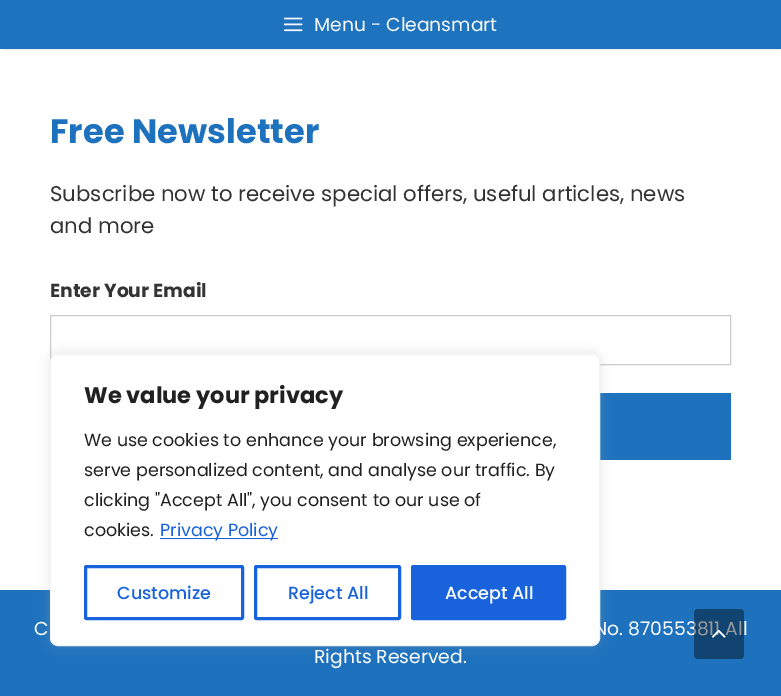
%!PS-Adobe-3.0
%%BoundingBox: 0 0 781 696
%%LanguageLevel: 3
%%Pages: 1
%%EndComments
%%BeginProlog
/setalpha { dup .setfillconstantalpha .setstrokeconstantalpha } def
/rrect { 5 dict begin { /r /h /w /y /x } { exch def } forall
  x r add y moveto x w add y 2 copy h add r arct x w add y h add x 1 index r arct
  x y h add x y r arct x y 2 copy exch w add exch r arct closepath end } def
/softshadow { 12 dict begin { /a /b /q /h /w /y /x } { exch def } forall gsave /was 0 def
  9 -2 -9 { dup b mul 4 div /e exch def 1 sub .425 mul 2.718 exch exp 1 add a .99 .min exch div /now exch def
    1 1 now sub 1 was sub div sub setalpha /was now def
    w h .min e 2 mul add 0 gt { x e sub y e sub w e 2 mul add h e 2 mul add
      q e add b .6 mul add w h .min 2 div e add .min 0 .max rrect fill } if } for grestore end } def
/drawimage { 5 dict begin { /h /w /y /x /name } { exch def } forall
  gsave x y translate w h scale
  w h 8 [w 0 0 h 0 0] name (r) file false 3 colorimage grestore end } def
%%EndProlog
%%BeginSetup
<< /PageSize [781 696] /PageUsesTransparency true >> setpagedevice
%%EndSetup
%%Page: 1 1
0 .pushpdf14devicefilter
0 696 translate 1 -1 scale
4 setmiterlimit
1 setgray
0 0 781 696 rectfill
0 setgray
3 5 776 44 0 1 0.2 softshadow
0.118 0.451 0.745 setrgbcolor
0 0 781 49 rectfill
(images/1.raw) 284 17 19 15 drawimage
0.8 setgray
50.5 315.5 680 49 rectstroke
0.118 0.447 0.741 setrgbcolor
600 393 131 67 rectfill
0 590 781 106 rectfill
0.675 0.671 0.671 setrgbcolor
50 353 550 292 8 6 0.3 softshadow
1 setgray
50.5 354.5 549 291 7.5 rrect gsave fill grestore
0.957 setgray
stroke
0.094 0.388 0.863 setrgbcolor
160 538 118 1 rectfill
3 setlinewidth
85.5 566.5 157 52 1 rrect stroke
255.5 566.5 144 52 1 rrect stroke
412.5 566.5 152 52 1 rrect gsave fill grestore
stroke
/Poppins-Regular [18.75 0 0 -18.75 0 0] selectfont
0.969 0.973 0.976 setrgbcolor
314 31 moveto (Menu - Cleansmart) show
/Poppins-Bold [33.75 0 0 -33.75 0 0] selectfont
0.118 0.447 0.741 setrgbcolor
50 143 moveto (Free Newsletter) show
/Poppins-Regular [21.25 0 0 -21.25 0 0] selectfont
0.2 setgray
50 201 moveto (Subscribe now to receive special offers, useful articles, news) show
50 233 moveto (and more) show
/Poppins-Bold [18.75 0 0 -18.75 0 0] selectfont
50 297 moveto (Enter Your Email) show
/Poppins-Regular [18.75 0 0 -18.75 0 0] selectfont
1 setgray
34 635 moveto (C) show
594 635 moveto (No. 870553811 All) show
314 663 moveto (Rights Reserved.) show
/Poppins-Bold [22.5 0 0 -22.5 0 0] selectfont
0.129 setgray
84 403 moveto (We value your privacy) show
/Poppins-Regular [17.5 0 0 -17.5 0 0] selectfont
84 446 moveto (We use cookies to enhance your browsing experience,) show
84 476 moveto (serve personalized content, and analyse our traffic. By) show
84 506 moveto (clicking "Accept All", you consent to our use of) show
84 536 moveto (cookies.) show
0.094 0.388 0.863 setrgbcolor
160 536 moveto (Privacy Policy) show
/Poppins-Medium [17.5 0 0 -17.5 0 0] selectfont
117 599 moveto (Customize) show
288 599 moveto (Reject All) show
1 setgray
445 599 moveto (Accept All) show
0.4 setalpha
0 setgray
694 609 50 50 4 rrect fill
1 setalpha
(images/2.raw) 711 629 15 9 drawimage
.poppdf14devicefilter showpage
%%EOF
